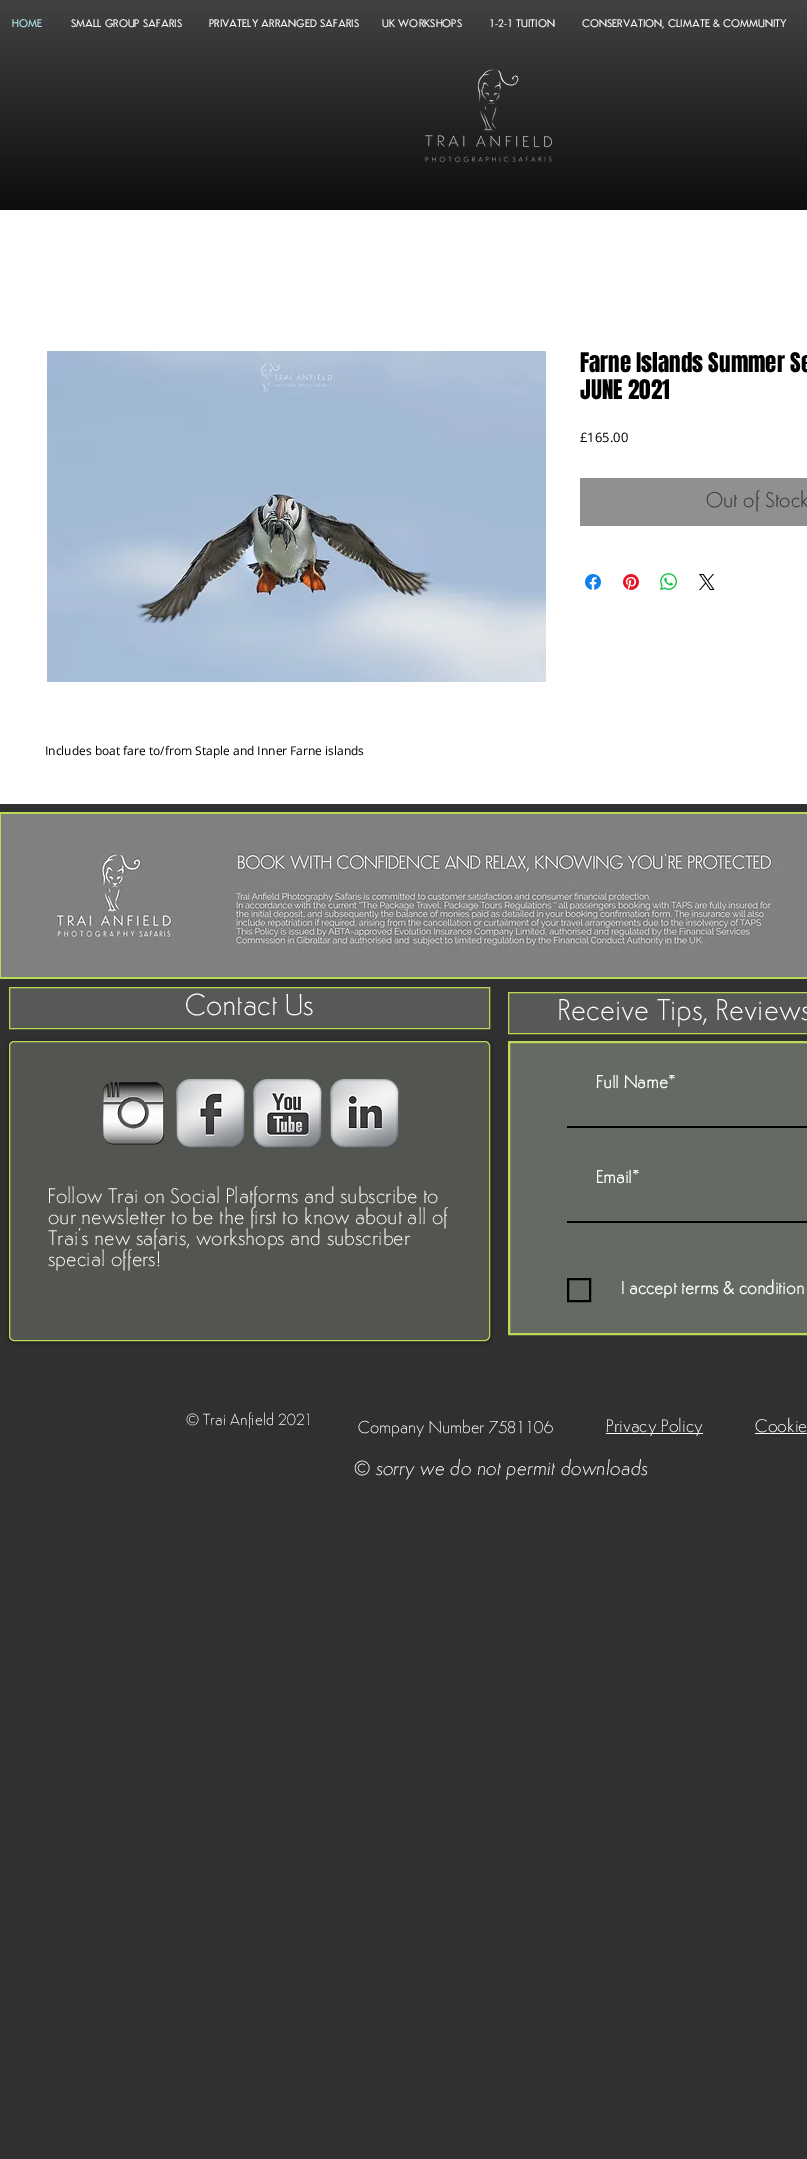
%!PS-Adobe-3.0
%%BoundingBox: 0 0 807 2159
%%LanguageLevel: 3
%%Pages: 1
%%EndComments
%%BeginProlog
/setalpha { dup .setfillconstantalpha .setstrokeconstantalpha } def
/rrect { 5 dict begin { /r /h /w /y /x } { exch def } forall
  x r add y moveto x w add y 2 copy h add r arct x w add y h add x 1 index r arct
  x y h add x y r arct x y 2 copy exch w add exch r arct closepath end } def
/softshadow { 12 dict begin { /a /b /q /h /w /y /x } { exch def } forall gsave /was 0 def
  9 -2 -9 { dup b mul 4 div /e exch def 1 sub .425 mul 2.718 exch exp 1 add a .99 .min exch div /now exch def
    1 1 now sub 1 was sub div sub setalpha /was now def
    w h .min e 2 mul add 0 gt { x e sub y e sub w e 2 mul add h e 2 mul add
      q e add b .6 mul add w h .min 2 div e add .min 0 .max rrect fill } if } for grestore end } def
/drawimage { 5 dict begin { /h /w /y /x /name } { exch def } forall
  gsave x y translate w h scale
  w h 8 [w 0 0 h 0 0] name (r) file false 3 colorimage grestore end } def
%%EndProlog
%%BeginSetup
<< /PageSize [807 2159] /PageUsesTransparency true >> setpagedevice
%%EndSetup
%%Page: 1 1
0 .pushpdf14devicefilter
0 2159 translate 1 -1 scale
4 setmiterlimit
0.188 setgray
0 0 807 2159 rectfill
0 setgray
0 0 807 210 rectfill
(images/1.raw) 0 0 807 210 drawimage
(images/2.raw) 425 69 128 94 drawimage
1 setgray
0 210 807 594 rectfill
0.565 setgray
580 478 227 48 rectfill
(images/3.raw) 585 574 16 16 drawimage
(images/4.raw) 623 574 16 16 drawimage
(images/5.raw) 660 573 17 17 drawimage
(images/6.raw) 699 574 16 16 drawimage
(images/7.raw) 47 351 499 331 drawimage
0.729 0.855 0.333 setrgbcolor
0 812 807 167 rectfill
(images/8.raw) 1 814 806 163 drawimage
0.341 0.349 0.337 setrgbcolor
newpath 9.5 987.5 moveto 489.5 987.5 lineto 489.5 1028.5 lineto 9.5 1028.5 lineto closepath gsave fill grestore
0.729 0.855 0.333 setrgbcolor
stroke
0.341 0.349 0.337 setrgbcolor
newpath 508.5 992.5 moveto 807.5 992.5 lineto 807.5 1033.5 lineto 508.5 1033.5 lineto closepath gsave fill grestore
0.729 0.855 0.333 setrgbcolor
stroke
gsave
newpath 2 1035 moveto 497 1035 lineto 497 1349 lineto 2 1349 lineto closepath 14 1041 moveto 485 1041 lineto 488 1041 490 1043 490 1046 curveto 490 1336 lineto 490 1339 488 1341 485 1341 curveto 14 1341 lineto 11 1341 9 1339 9 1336 curveto 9 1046 lineto 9 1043 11 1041 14 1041 curveto closepath eoclip newpath
0 setgray
9 1042 481 300 5 2 0.6 softshadow
grestore
0.28 setalpha
0.663 0.714 0.643 setrgbcolor
9.5 1041.5 480 299 4.5 rrect fill
1 setalpha
0.729 0.855 0.333 setrgbcolor
9.5 1041.5 480 299 4.5 rrect stroke
(images/9.raw) 103 1082 62 63 drawimage
(images/10.raw) 176 1079 69 69 drawimage
(images/11.raw) 253 1079 69 69 drawimage
(images/12.raw) 330 1079 69 69 drawimage
0.396 0.416 0.384 setrgbcolor
newpath 509 1042 moveto 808 1042 lineto 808 1334 lineto 509 1334 lineto closepath gsave fill grestore
0.729 0.855 0.333 setrgbcolor
2 setlinewidth
stroke
0 setgray
567 1126 240 2 rectfill
567 1221 240 2 rectfill
568 1279 22 22 rectstroke
1 setgray
606 1433 97 1 rectfill
755 1433 52 1 rectfill
/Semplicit-Medium [11 0 0 -11 0 0] selectfont
0.714 0.922 0.945 setrgbcolor
12 27 moveto (HOME) show
1 setgray
71 27 moveto (SMALL GROUP SAFARIS) show
209 27 moveto (PRIVATELY ARRANGED SAFARIS) show
382 27 moveto (UK WORKSHOPS) show
489 27 moveto (1-2-1 TUITION) show
582 27 moveto (CONSERVATION, CLIMATE & COMMUNITY) show
/Anton-Regular [23 0 0 -23 0 0] selectfont
0 setgray
580 372 moveto (Farne Islands Summer Se) show
580 399 moveto (JUNE 2021) show
/OpenSans-Regular [13 0 0 -13 0 0] selectfont
580 442 moveto (£165.00) show
/Semplicit-Light [21 0 0 -21 0 0] selectfont
0.188 setgray
706 507 moveto (Out of Stock) show
/OpenSans-Regular [12 0 0 -12 0 0] selectfont
0 setgray
45 755 moveto (Includes boat fare to/from Staple and Inner Farne islands) show
/Semplicit-Light [30 0 0 -30 0 0] selectfont
1 setgray
185 1015 moveto (Contact Us) show
558 1020 moveto (Receive Tips, Reviews) show
/Semplicit-Light [21 0 0 -21 0 0] selectfont
48 1203 moveto (Follow Trai on Social Platforms and subscribe to) show
48 1224 moveto (our newsletter to be the first to know about all of) show
48 1245 moveto (Trai's new safaris, workshops and subscriber) show
48 1266 moveto (special offers!) show
gsave
596 1075 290 18 rectclip
/Semplicit-Bold [18 0 0 -18 0 0] selectfont
596 1088 moveto (Full Name*) show
grestore
gsave
596 1170 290 18 rectclip
/Semplicit-Bold [18 0 0 -18 0 0] selectfont
596 1183 moveto (Email*) show
grestore
/Semplicit-Bold [18 0 0 -18 0 0] selectfont
621 1294 moveto (I accept terms & condition) show
/Semplicit-Light [16 0 0 -16 0 0] selectfont
186 1425 moveto (© Trai Anfield 2021) show
/Semplicit-Light [17 0 0 -17 0 0] selectfont
358 1433 moveto (Company Number 7581106) show
/Semplicit-Light [18 0 0 -18 0 0] selectfont
606 1432 moveto (Privacy Policy) show
755 1432 moveto (Cookie) show
/Semplicit-LightItalic [20 0 0 -20 0 0] selectfont
354 1475 moveto (© sorry we do not permit downloads) show
.poppdf14devicefilter showpage
%%EOF
